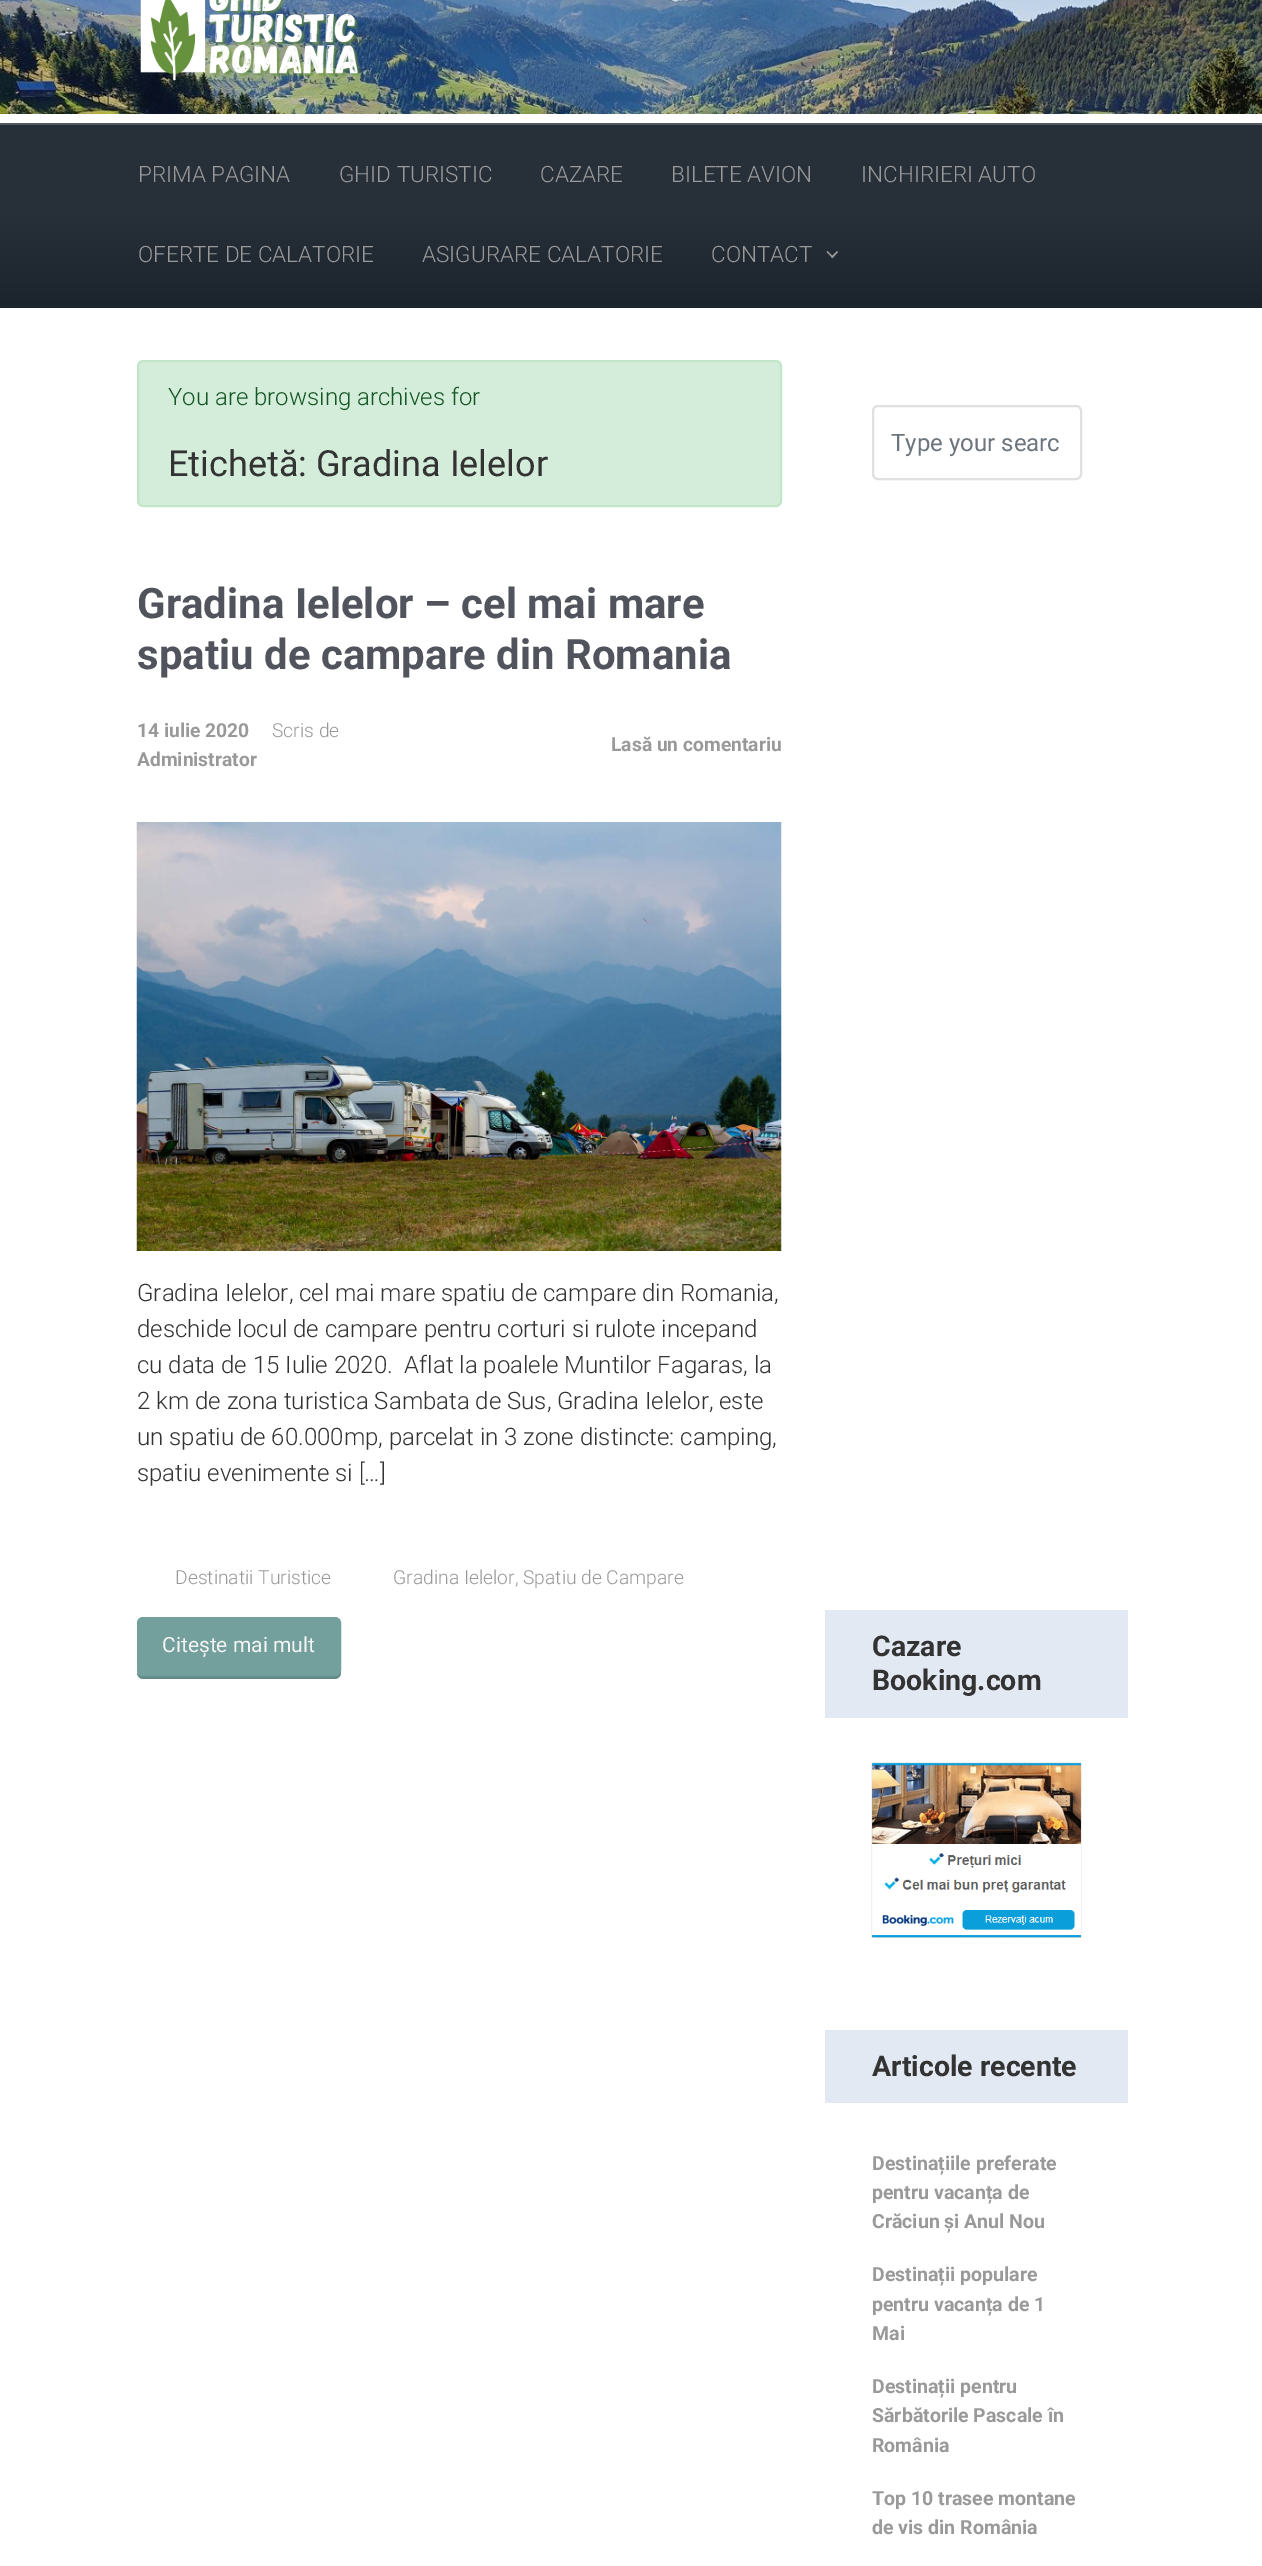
%!PS-Adobe-3.0
%%BoundingBox: 0 0 1262 2566
%%LanguageLevel: 3
%%Pages: 1
%%EndComments
%%BeginProlog
/rrect { 5 dict begin { /r /h /w /y /x } { exch def } forall
  x r add y moveto x w add y 2 copy h add r arct x w add y h add x 1 index r arct
  x y h add x y r arct x y 2 copy exch w add exch r arct closepath end } def
/drawimage { 5 dict begin { /h /w /y /x /name } { exch def } forall
  gsave x y translate w h scale
  w h 8 [w 0 0 h 0 0] name (r) file false 3 colorimage grestore end } def
%%EndProlog
%%BeginSetup
<< /PageSize [1262 2566] >> setpagedevice
%%EndSetup
%%Page: 1 1
0 2566 translate 1 -1 scale
4 setmiterlimit
1 setgray
0 0 1262 2566 rectfill
(images/1.raw) 0 0 1262 114 drawimage
(images/2.raw) 140 0 222 81 drawimage
gsave newpath 0 125 moveto 1262 125 lineto 1262 308 lineto 0 308 lineto closepath clip newpath
<< /ShadingType 2 /ColorSpace /DeviceRGB /Coords [632 123 632 308] /Extend [true true] /Function << /FunctionType 3 /Domain [0 1] /Functions [<< /FunctionType 2 /Domain [0 1] /C0 [0.153 0.188 0.224] /C1 [0.153 0.188 0.224] /N 1 >> << /FunctionType 2 /Domain [0 1] /C0 [0.153 0.188 0.224] /C1 [0.106 0.141 0.176] /N 1 >>] /Bounds [0.5] /Encode [0 1 0 1] >> >> shfill grestore
0.322 0.349 0.38 setrgbcolor
0 123 1262 2 rectfill
0.6 setgray
newpath 837 251 moveto 838 252 lineto 832.5 258 lineto 831 257 lineto closepath fill
newpath 827.5 251 moveto 833.5 257 lineto 832.5 258 lineto 826.5 252 lineto closepath fill
0.831 0.929 0.855 setrgbcolor
138 361 643 145 5 rrect gsave fill grestore
0.765 0.902 0.796 setrgbcolor
2 setlinewidth
stroke
(images/3.raw) 136 822 646 429 drawimage
0.388 0.549 0.533 setrgbcolor
newpath 137 1672 moveto 137 1673 lineto 137 1676 140 1679 143 1679 curveto 335 1679 lineto 338 1679 341 1676 341 1673 curveto 341 1626 lineto 340 1624 lineto 340 1669 lineto 340 1673 338 1676 334 1676 curveto 143 1676 lineto 140 1676 138 1674 137 1672 curveto closepath fill
0.451 0.627 0.612 setrgbcolor
138 1618 202 57 5 rrect gsave fill grestore
stroke
0.878 setgray
873 406 208 73 5 rrect stroke
0.886 0.914 0.949 setrgbcolor
825 1610 303 108 rectfill
(images/4.raw) 871 1762 211 176 drawimage
825 2030 303 73 rectfill
/Roboto-Light [22.5 0 0 -22.5 0 0] selectfont
0.6 setgray
138 182 moveto (PRIMA PAGINA) show
339 182 moveto (GHID TURISTIC) show
540 182 moveto (CAZARE) show
671 182 moveto (BILETE AVION) show
861 182 moveto (INCHIRIERI AUTO) show
138 262 moveto (OFERTE DE CALATORIE) show
422 262 moveto (ASIGURARE CALATORIE) show
711 262 moveto (CONTACT) show
/Roboto-Light [24 0 0 -24 0 0] selectfont
0.082 0.341 0.141 setrgbcolor
168 405 moveto (You are browsing archives for) show
/Roboto-Regular [36 0 0 -36 0 0] selectfont
0.2 setgray
168 476 moveto (Etichetă: Gradina Ielelor) show
/Roboto-Bold [42 0 0 -42 0 0] selectfont
0.318 0.329 0.361 setrgbcolor
137 618 moveto (Gradina Ielelor – cel mai mare) show
137 669 moveto (spatiu de campare din Romania) show
/Roboto-Bold [19.25 0 0 -19.25 0 0] selectfont
0.6 setgray
137 737 moveto (14 iulie 2020) show
/Roboto-Light [19.25 0 0 -19.25 0 0] selectfont
272 737 moveto (Scris de) show
/Roboto-Bold [19.25 0 0 -19.25 0 0] selectfont
137 766 moveto (Administrator) show
611 751 moveto (Lasă un comentariu) show
/Roboto-Light [24 0 0 -24 0 0] selectfont
0.2 setgray
137 1301 moveto (Gradina Ielelor, cel mai mare spatiu de campare din Romania,) show
137 1337 moveto (deschide locul de campare pentru corturi si rulote incepand) show
137 1373 moveto (cu data de 15 Iulie 2020.  Aflat la poalele Muntilor Fagaras, la) show
137 1409 moveto (2 km de zona turistica Sambata de Sus, Gradina Ielelor, este) show
137 1445 moveto (un spatiu de 60.000mp, parcelat in 3 zone distincte: camping,) show
137 1481 moveto (spatiu evenimente si […]) show
/Roboto-Light [19.25 0 0 -19.25 0 0] selectfont
0.6 setgray
175 1584 moveto (Destinatii Turistice) show
393 1584 moveto (Gradina Ielelor, Spatiu de Campare) show
/Roboto-Regular [21 0 0 -21 0 0] selectfont
0.957 setgray
162 1652 moveto (Citește mai mult) show
/Roboto-Regular [24 0 0 -24 0 0] selectfont
0.424 0.459 0.49 setrgbcolor
891 451 moveto (Type your searc) show
/Roboto-Bold [28.5 0 0 -28.5 0 0] selectfont
0.2 setgray
872 1656 moveto (Cazare) show
872 1690 moveto (Booking.com) show
872 2076 moveto (Articole recente) show
/Roboto-Bold [19.5 0 0 -19.5 0 0] selectfont
0.6 setgray
872 2170 moveto (Destinațiile preferate) show
872 2199 moveto (pentru vacanța de) show
872 2228 moveto (Crăciun și Anul Nou) show
872 2281 moveto (Destinații populare) show
872 2311 moveto (pentru vacanța de 1) show
872 2340 moveto (Mai) show
872 2393 moveto (Destinații pentru) show
872 2422 moveto (Sărbătorile Pascale în) show
872 2452 moveto (România) show
872 2505 moveto (Top 10 trasee montane) show
872 2534 moveto (de vis din România) show
showpage
%%EOF
